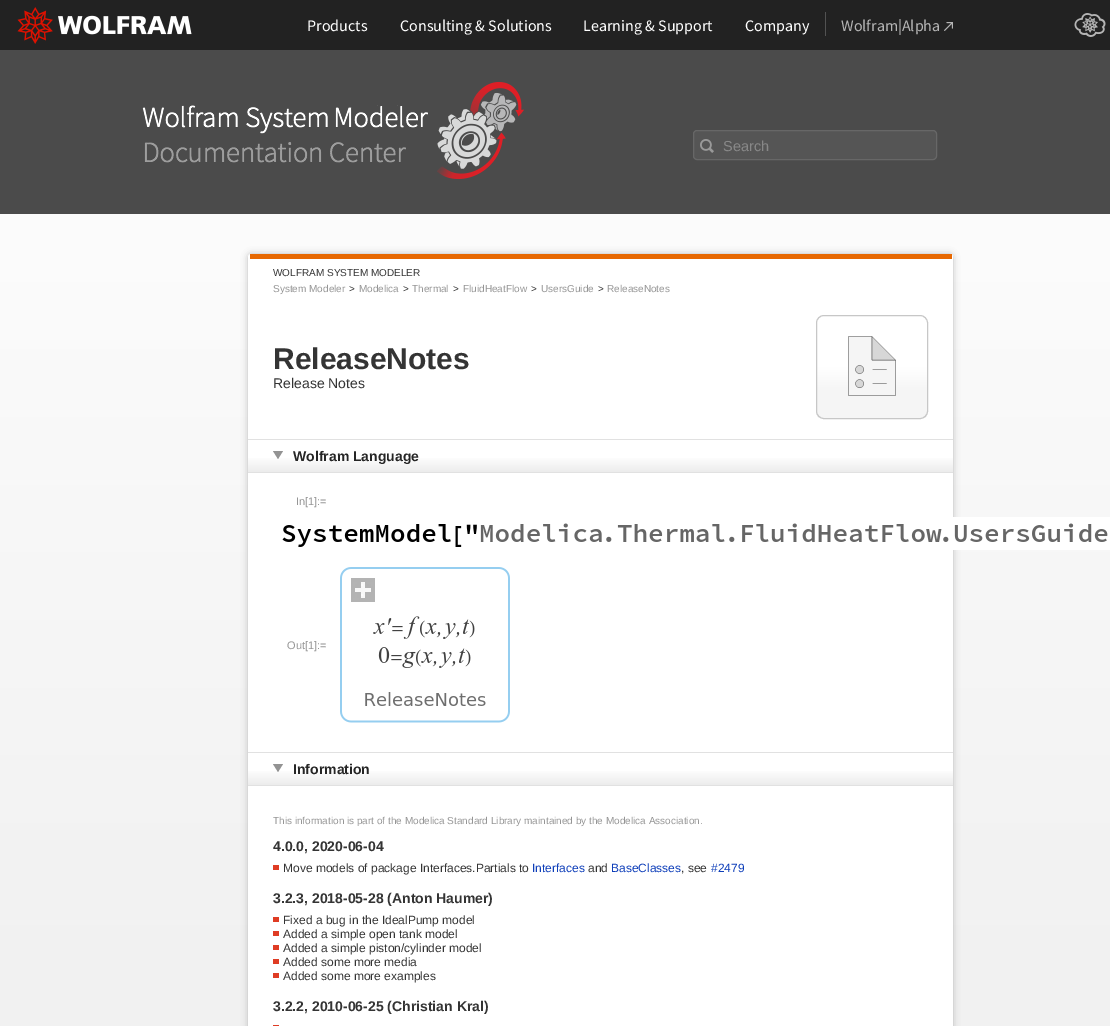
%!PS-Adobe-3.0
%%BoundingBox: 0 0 1110 1026
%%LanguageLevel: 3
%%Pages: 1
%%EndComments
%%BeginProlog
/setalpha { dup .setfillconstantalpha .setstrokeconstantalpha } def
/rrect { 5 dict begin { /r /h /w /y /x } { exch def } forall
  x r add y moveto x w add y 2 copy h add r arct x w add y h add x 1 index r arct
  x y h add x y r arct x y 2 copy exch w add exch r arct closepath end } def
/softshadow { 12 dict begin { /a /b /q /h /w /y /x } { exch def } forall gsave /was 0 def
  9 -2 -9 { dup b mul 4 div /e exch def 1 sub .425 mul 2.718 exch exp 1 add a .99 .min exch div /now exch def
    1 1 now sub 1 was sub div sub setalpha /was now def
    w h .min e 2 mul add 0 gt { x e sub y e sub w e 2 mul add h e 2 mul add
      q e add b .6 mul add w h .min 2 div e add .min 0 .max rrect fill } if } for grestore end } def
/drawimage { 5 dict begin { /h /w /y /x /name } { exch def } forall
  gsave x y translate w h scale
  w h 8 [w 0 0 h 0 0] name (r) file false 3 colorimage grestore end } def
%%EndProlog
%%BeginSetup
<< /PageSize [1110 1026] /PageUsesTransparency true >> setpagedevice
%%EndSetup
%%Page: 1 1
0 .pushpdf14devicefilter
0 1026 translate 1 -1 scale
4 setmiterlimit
1 setgray
0 0 1110 1026 rectfill
gsave newpath 0 214 moveto 1110 214 lineto 1110 1026 lineto 0 1026 lineto closepath clip newpath
<< /ShadingType 2 /ColorSpace /DeviceRGB /Coords [555 0 555 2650] /Extend [true true] /Function << /FunctionType 3 /Domain [0 1] /Functions [<< /FunctionType 2 /Domain [0 1] /C0 [1 1 1] /C1 [0.945 0.945 0.945] /N 1 >> << /FunctionType 2 /Domain [0 1] /C0 [0.945 0.945 0.945] /C1 [0.945 0.945 0.945] /N 1 >>] /Bounds [0.37] /Encode [0 1 0 1] >> >> shfill grestore
0.133 setgray
0 0 1110 50 rectfill
(images/1.raw) 17 7 175 37 drawimage
0.322 setgray
825 12 1 24 rectfill
(images/2.raw) 944 22 9 9 drawimage
(images/3.raw) 1074 13 32 24 drawimage
0.294 setgray
0 50 1110 164 rectfill
(images/4.raw) 142 82 382 97 drawimage
0.333 setgray
693.5 130.5 243 29 3.5 rrect gsave fill grestore
0.404 setgray
stroke
(images/5.raw) 700 139 14 14 drawimage
0.733 setgray
248 254 705 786 3 3.5 1 softshadow
1 setgray
248 254 705 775 3 rrect fill
0.906 0.408 0.004 setrgbcolor
250 254 702 5 rectfill
gsave
816 315 112 104 8 rrect clip newpath
gsave newpath 816 316 moveto 928 316 lineto 928 418 lineto 816 418 lineto closepath clip newpath
<< /ShadingType 2 /ColorSpace /DeviceRGB /Coords [872 316 872 418] /Extend [true true] /Function << /FunctionType 3 /Domain [0 1] /Functions [<< /FunctionType 2 /Domain [0 1] /C0 [1 1 1] /C1 [1 1 1] /N 1 >> << /FunctionType 2 /Domain [0 1] /C0 [1 1 1] /C1 [0.961 0.961 0.961] /N 1 >> << /FunctionType 2 /Domain [0 1] /C0 [0.961 0.961 0.961] /C1 [0.961 0.961 0.961] /N 1 >>] /Bounds [0.5 0.75] /Encode [0 1 0 1 0 1] >> >> shfill grestore
grestore
0.78 setgray
816.5 315.5 111 103 7.5 rrect stroke
(images/6.raw) 848 336 48 60 drawimage
gsave newpath 248 458 moveto 953 458 lineto 953 472 lineto 248 472 lineto closepath clip newpath
<< /ShadingType 2 /ColorSpace /DeviceRGB /Coords [601 440 601 472] /Extend [true true] /Function << /FunctionType 3 /Domain [0 1] /Functions [<< /FunctionType 2 /Domain [0 1] /C0 [1 1 1] /C1 [1 1 1] /N 1 >> << /FunctionType 2 /Domain [0 1] /C0 [1 1 1] /C1 [0.925 0.925 0.925] /N 1 >>] /Bounds [0.5] /Encode [0 1 0 1] >> >> shfill grestore
0.882 setgray
248 439 705 1 rectfill
248 472 705 1 rectfill
0.576 setgray
newpath 273 451 moveto 283 451 lineto 278 459 lineto closepath fill
(images/7.raw) 282 517 828 33 drawimage
(images/8.raw) 340 567 170 156 drawimage
gsave newpath 248 771 moveto 953 771 lineto 953 785 lineto 248 785 lineto closepath clip newpath
<< /ShadingType 2 /ColorSpace /DeviceRGB /Coords [601 753 601 785] /Extend [true true] /Function << /FunctionType 3 /Domain [0 1] /Functions [<< /FunctionType 2 /Domain [0 1] /C0 [1 1 1] /C1 [1 1 1] /N 1 >> << /FunctionType 2 /Domain [0 1] /C0 [1 1 1] /C1 [0.925 0.925 0.925] /N 1 >>] /Bounds [0.5] /Encode [0 1 0 1] >> >> shfill grestore
0.882 setgray
248 752 705 1 rectfill
248 785 705 1 rectfill
0.576 setgray
newpath 273 764 moveto 283 764 lineto 278 772 lineto closepath fill
0.875 0.235 0.141 setrgbcolor
273 865 6 5 rectfill
273 917 6 5 rectfill
273 931 6 5 rectfill
273 945 6 5 rectfill
273 959 6 5 rectfill
273 973 6 5 rectfill
273 1025 6 1 rectfill
/SourceSansPro-Regular [16 0 0 -16 0 0] selectfont
1 setgray
307 31 moveto (Products) show
400 31 moveto (Consulting & Solutions) show
583 31 moveto (Learning & Support) show
745 31 moveto (Company) show
0.71 setgray
841 31 moveto (Wolfram|Alpha) show
/LiberationSans-Regular [14.5 0 0 -14.5 0 0] selectfont
0.533 setgray
723 151 moveto (Search) show
/LiberationSans-Regular [10 0 0 -10 0 0] selectfont
0.204 setgray
273 276 moveto (WOLFRAM SYSTEM MODELER) show
0.584 setgray
273 292 moveto (System Modeler) show
0.204 setgray
349 292 moveto (>) show
0.584 setgray
359 292 moveto (Modelica) show
0.204 setgray
403 292 moveto (>) show
0.584 setgray
412 292 moveto (Thermal) show
0.204 setgray
453 292 moveto (>) show
0.584 setgray
463 292 moveto (FluidHeatFlow) show
0.204 setgray
531 292 moveto (>) show
0.584 setgray
541 292 moveto (UsersGuide) show
0.204 setgray
598 292 moveto (>) show
0.584 setgray
607 292 moveto (ReleaseNotes) show
/LiberationSans-Bold [30 0 0 -30 0 0] selectfont
0.204 setgray
273 369 moveto (ReleaseNotes) show
/LiberationSans-Regular [14 0 0 -14 0 0] selectfont
273 388 moveto (Release Notes) show
/LiberationSans-Bold [14 0 0 -14 0 0] selectfont
0.149 setgray
293 461 moveto (Wolfram Language) show
/LiberationSans-Regular [11 0 0 -11 0 0] selectfont
0.584 setgray
296 505 moveto (In[1]:=) show
287 649 moveto (Out[1]:=) show
/LiberationSans-Bold [14 0 0 -14 0 0] selectfont
0.149 setgray
293 774 moveto (Information) show
/LiberationSans-Regular [10 0 0 -10 0 0] selectfont
0.584 setgray
273 824 moveto (This information is part of the Modelica Standard Library maintained by the Modelica Association.) show
/LiberationSans-Bold [14 0 0 -14 0 0] selectfont
0.204 setgray
273 851 moveto (4.0.0, 2020-06-04) show
/LiberationSans-Regular [12 0 0 -12 0 0] selectfont
283 872 moveto (Move models of package Interfaces.Partials to) show
0.055 0.243 0.725 setrgbcolor
532 872 moveto (Interfaces) show
0.204 setgray
588 872 moveto (and) show
0.055 0.243 0.725 setrgbcolor
611 872 moveto (BaseClasses) show
0.204 setgray
681 872 moveto (, see) show
0.055 0.243 0.725 setrgbcolor
711 872 moveto (#2479) show
/LiberationSans-Bold [14 0 0 -14 0 0] selectfont
0.204 setgray
273 903 moveto (3.2.3, 2018-05-28 \(Anton Haumer\)) show
/LiberationSans-Regular [12 0 0 -12 0 0] selectfont
283 924 moveto (Fixed a bug in the IdealPump model) show
283 938 moveto (Added a simple open tank model) show
283 952 moveto (Added a simple piston/cylinder model) show
283 966 moveto (Added some more media) show
283 980 moveto (Added some more examples) show
/LiberationSans-Bold [14 0 0 -14 0 0] selectfont
273 1011 moveto (3.2.2, 2010-06-25 \(Christian Kral\)) show
.poppdf14devicefilter showpage
%%EOF
